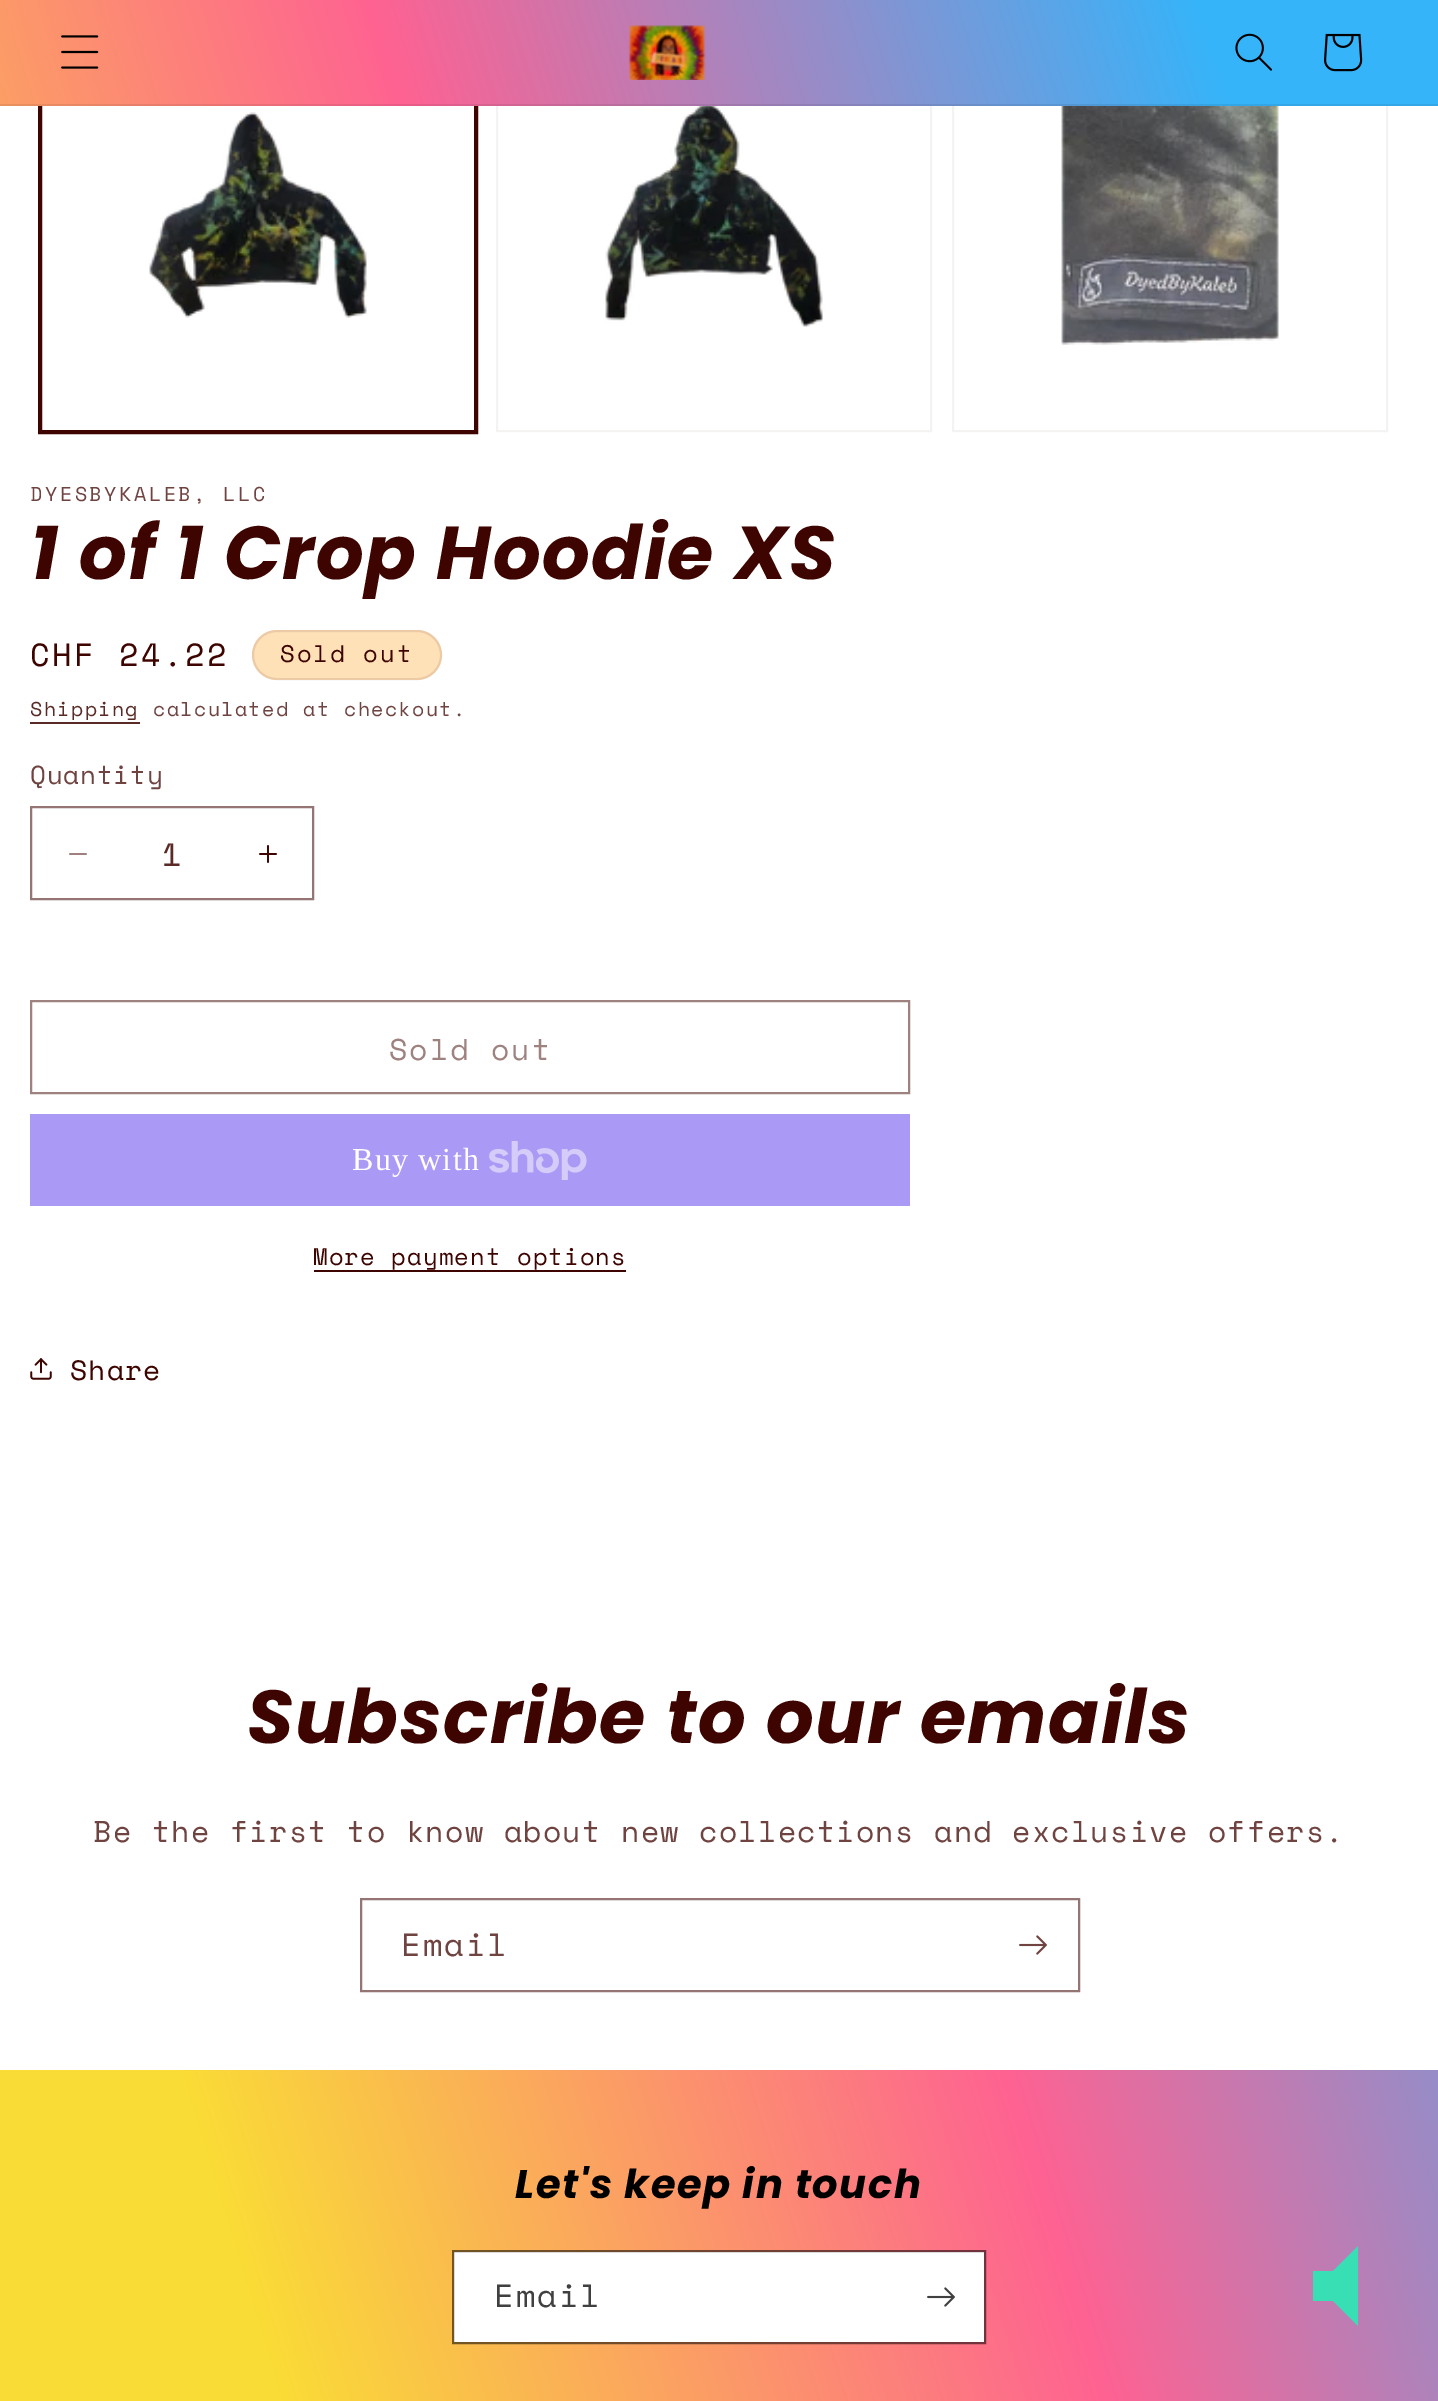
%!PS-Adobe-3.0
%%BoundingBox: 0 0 1438 2401
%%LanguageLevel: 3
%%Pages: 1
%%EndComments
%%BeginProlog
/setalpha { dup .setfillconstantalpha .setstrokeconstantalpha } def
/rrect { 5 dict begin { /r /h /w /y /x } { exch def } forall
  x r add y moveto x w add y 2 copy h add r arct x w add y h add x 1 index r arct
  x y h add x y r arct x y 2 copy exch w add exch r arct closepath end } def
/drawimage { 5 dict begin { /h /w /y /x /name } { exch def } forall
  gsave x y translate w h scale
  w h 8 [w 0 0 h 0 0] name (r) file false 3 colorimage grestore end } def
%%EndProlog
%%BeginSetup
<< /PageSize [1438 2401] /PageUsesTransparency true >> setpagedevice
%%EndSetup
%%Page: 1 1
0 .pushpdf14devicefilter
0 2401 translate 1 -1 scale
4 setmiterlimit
1 setgray
0 0 1438 2401 rectfill
0.239 0.016 0 setrgbcolor
2 setlinewidth
39 -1 438 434 rectstroke
41 -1 434 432 rectstroke
0.961 0.949 0.949 setrgbcolor
497 -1 434 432 rectstroke
953 -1 434 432 rectstroke
gsave newpath 0 0 moveto 1438 0 lineto 1438 106 lineto 0 106 lineto closepath clip newpath
<< /ShadingType 2 /ColorSpace /DeviceRGB /Coords [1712 897 -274 1505] /Extend [true true] /Function << /FunctionType 3 /Domain [0 1] /Functions [<< /FunctionType 2 /Domain [0 1] /C0 [0.212 0.706 0.98] /C1 [0.212 0.706 0.98] /N 1 >> << /FunctionType 2 /Domain [0 1] /C0 [0.212 0.706 0.98] /C1 [0.996 0.384 0.573] /N 1 >> << /FunctionType 2 /Domain [0 1] /C0 [0.996 0.384 0.573] /C1 [0.98 0.863 0.212] /N 1 >> << /FunctionType 2 /Domain [0 1] /C0 [0.98 0.863 0.212] /C1 [0.98 0.863 0.212] /N 1 >>] /Bounds [0.11 0.49 0.87] /Encode [0 1 0 1 0 1 0 1] >> >> shfill grestore
0.08 setalpha
0 setgray
0 104 1438 2 rectfill
1 setalpha
(images/1.raw) 61 35 38 34 drawimage
(images/2.raw) 629 25 77 55 drawimage
(images/3.raw) 1235 33 37 38 drawimage
(images/4.raw) 1324 33 39 39 drawimage
(images/5.raw) 149 112 218 206 drawimage
(images/6.raw) 605 106 218 221 drawimage
(images/7.raw) 1061 106 218 239 drawimage
1 0.882 0.722 setrgbcolor
252 630 190 50 25 rrect fill
0.1 setalpha
0.239 0.016 0 setrgbcolor
253 631 188 48 24 rrect stroke
1 setalpha
0.353 0.165 0.149 setrgbcolor
30 722 110 2 rectfill
(images/8.raw) 69 853 18 2 drawimage
(images/9.raw) 259 845 18 18 drawimage
0.58 0.459 0.451 setrgbcolor
31 807 282 92 rectstroke
0.62 0.51 0.502 setrgbcolor
31 1001 878 92 rectstroke
0.667 0.6 0.961 setrgbcolor
30 1114 880 92 rectfill
(images/10.raw) 489 1141 98 39 drawimage
0.239 0.016 0 setrgbcolor
314 1270 312 2 rectfill
(images/11.raw) 30 1358 22 22 drawimage
0.58 0.459 0.451 setrgbcolor
361 1899 718 92 rectstroke
(images/12.raw) 1019 1935 28 20 drawimage
gsave newpath 0 2070 moveto 1438 2070 lineto 1438 2401 lineto 0 2401 lineto closepath clip newpath
<< /ShadingType 2 /ColorSpace /DeviceRGB /Coords [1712 897 -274 1505] /Extend [true true] /Function << /FunctionType 3 /Domain [0 1] /Functions [<< /FunctionType 2 /Domain [0 1] /C0 [0.212 0.706 0.98] /C1 [0.212 0.706 0.98] /N 1 >> << /FunctionType 2 /Domain [0 1] /C0 [0.212 0.706 0.98] /C1 [0.996 0.384 0.573] /N 1 >> << /FunctionType 2 /Domain [0 1] /C0 [0.996 0.384 0.573] /C1 [0.98 0.863 0.212] /N 1 >> << /FunctionType 2 /Domain [0 1] /C0 [0.98 0.863 0.212] /C1 [0.98 0.863 0.212] /N 1 >>] /Bounds [0.11 0.49 0.87] /Encode [0 1 0 1 0 1 0 1] >> >> shfill grestore
1 setgray
454 2252 530 90 rectfill
0.55 setalpha
0 setgray
453 2251 532 92 rectstroke
1 setalpha
(images/13.raw) 927 2287 28 20 drawimage
0.22 0.875 0.706 setrgbcolor
newpath 1313 2271 moveto 1313 2301 lineto 1333 2301 lineto 1358 2326 lineto 1358 2246 lineto 1333 2271 lineto closepath fill
/SpaceMono-Regular [20 0 0 -20 0 0] selectfont
0.431 0.263 0.251 setrgbcolor
30 501 moveto 2.6 0 (DYESBYKALEB, LLC) ashow
/Poppins-BoldItalic [75 0 0 -75 0 0] selectfont
0.239 0.016 0 setrgbcolor
30 579 moveto 1.5 0 (1 of 1 Crop Hoodie XS) ashow
/SpaceMono-Regular [32 0 0 -32 0 0] selectfont
30 666 moveto 2.6 0 (CHF 24.22) ashow
/SpaceMono-Regular [24 0 0 -24 0 0] selectfont
280 662 moveto 2 0 (Sold out) ashow
/SpaceMono-Regular [20 0 0 -20 0 0] selectfont
0.353 0.165 0.149 setrgbcolor
30 716 moveto 1.4 0 (Shipping) ashow
0.431 0.263 0.251 setrgbcolor
153 716 moveto 1.4 0 (calculated at checkout.) ashow
/SpaceMono-Regular [26 0 0 -26 0 0] selectfont
30 784 moveto 0.75 0 (Quantity) ashow
/SpaceMono-Regular [32 0 0 -32 0 0] selectfont
0.353 0.165 0.149 setrgbcolor
162 866 moveto (1) show
/SpaceMono-Regular [30 0 0 -30 0 0] selectfont
0.62 0.51 0.502 setrgbcolor
389 1060 moveto 2 0 (Sold out) ashow
/LiberationSerif-Regular [32 0 0 -32 0 0] selectfont
1 setgray
352 1170 moveto 1.2 0 (Buy with) ashow
/SpaceMono-Regular [24 0 0 -24 0 0] selectfont
0.239 0.016 0 setrgbcolor
313 1265 moveto 1 0 (More payment options) ashow
/SpaceMono-Regular [28 0 0 -28 0 0] selectfont
70 1380 moveto 1.2 0 (Share) ashow
/Poppins-BoldItalic [75 0 0 -75 0 0] selectfont
247 1743 moveto 1.5 0 (Subscribe to our emails) ashow
/SpaceMono-Regular [30 0 0 -30 0 0] selectfont
0.431 0.263 0.251 setrgbcolor
93 1842 moveto 1.2 0 (Be the first to know about new collections and exclusive offers.) ashow
/SpaceMono-Regular [32 0 0 -32 0 0] selectfont
401 1956 moveto 2 0 (Email) ashow
/Poppins-BoldItalic [40 0 0 -40 0 0] selectfont
0 setgray
515 2198 moveto 1.5 0 (Let's keep in touch) ashow
/SpaceMono-Regular [32 0 0 -32 0 0] selectfont
0.251 setgray
494 2307 moveto 2 0 (Email) ashow
.poppdf14devicefilter showpage
%%EOF
